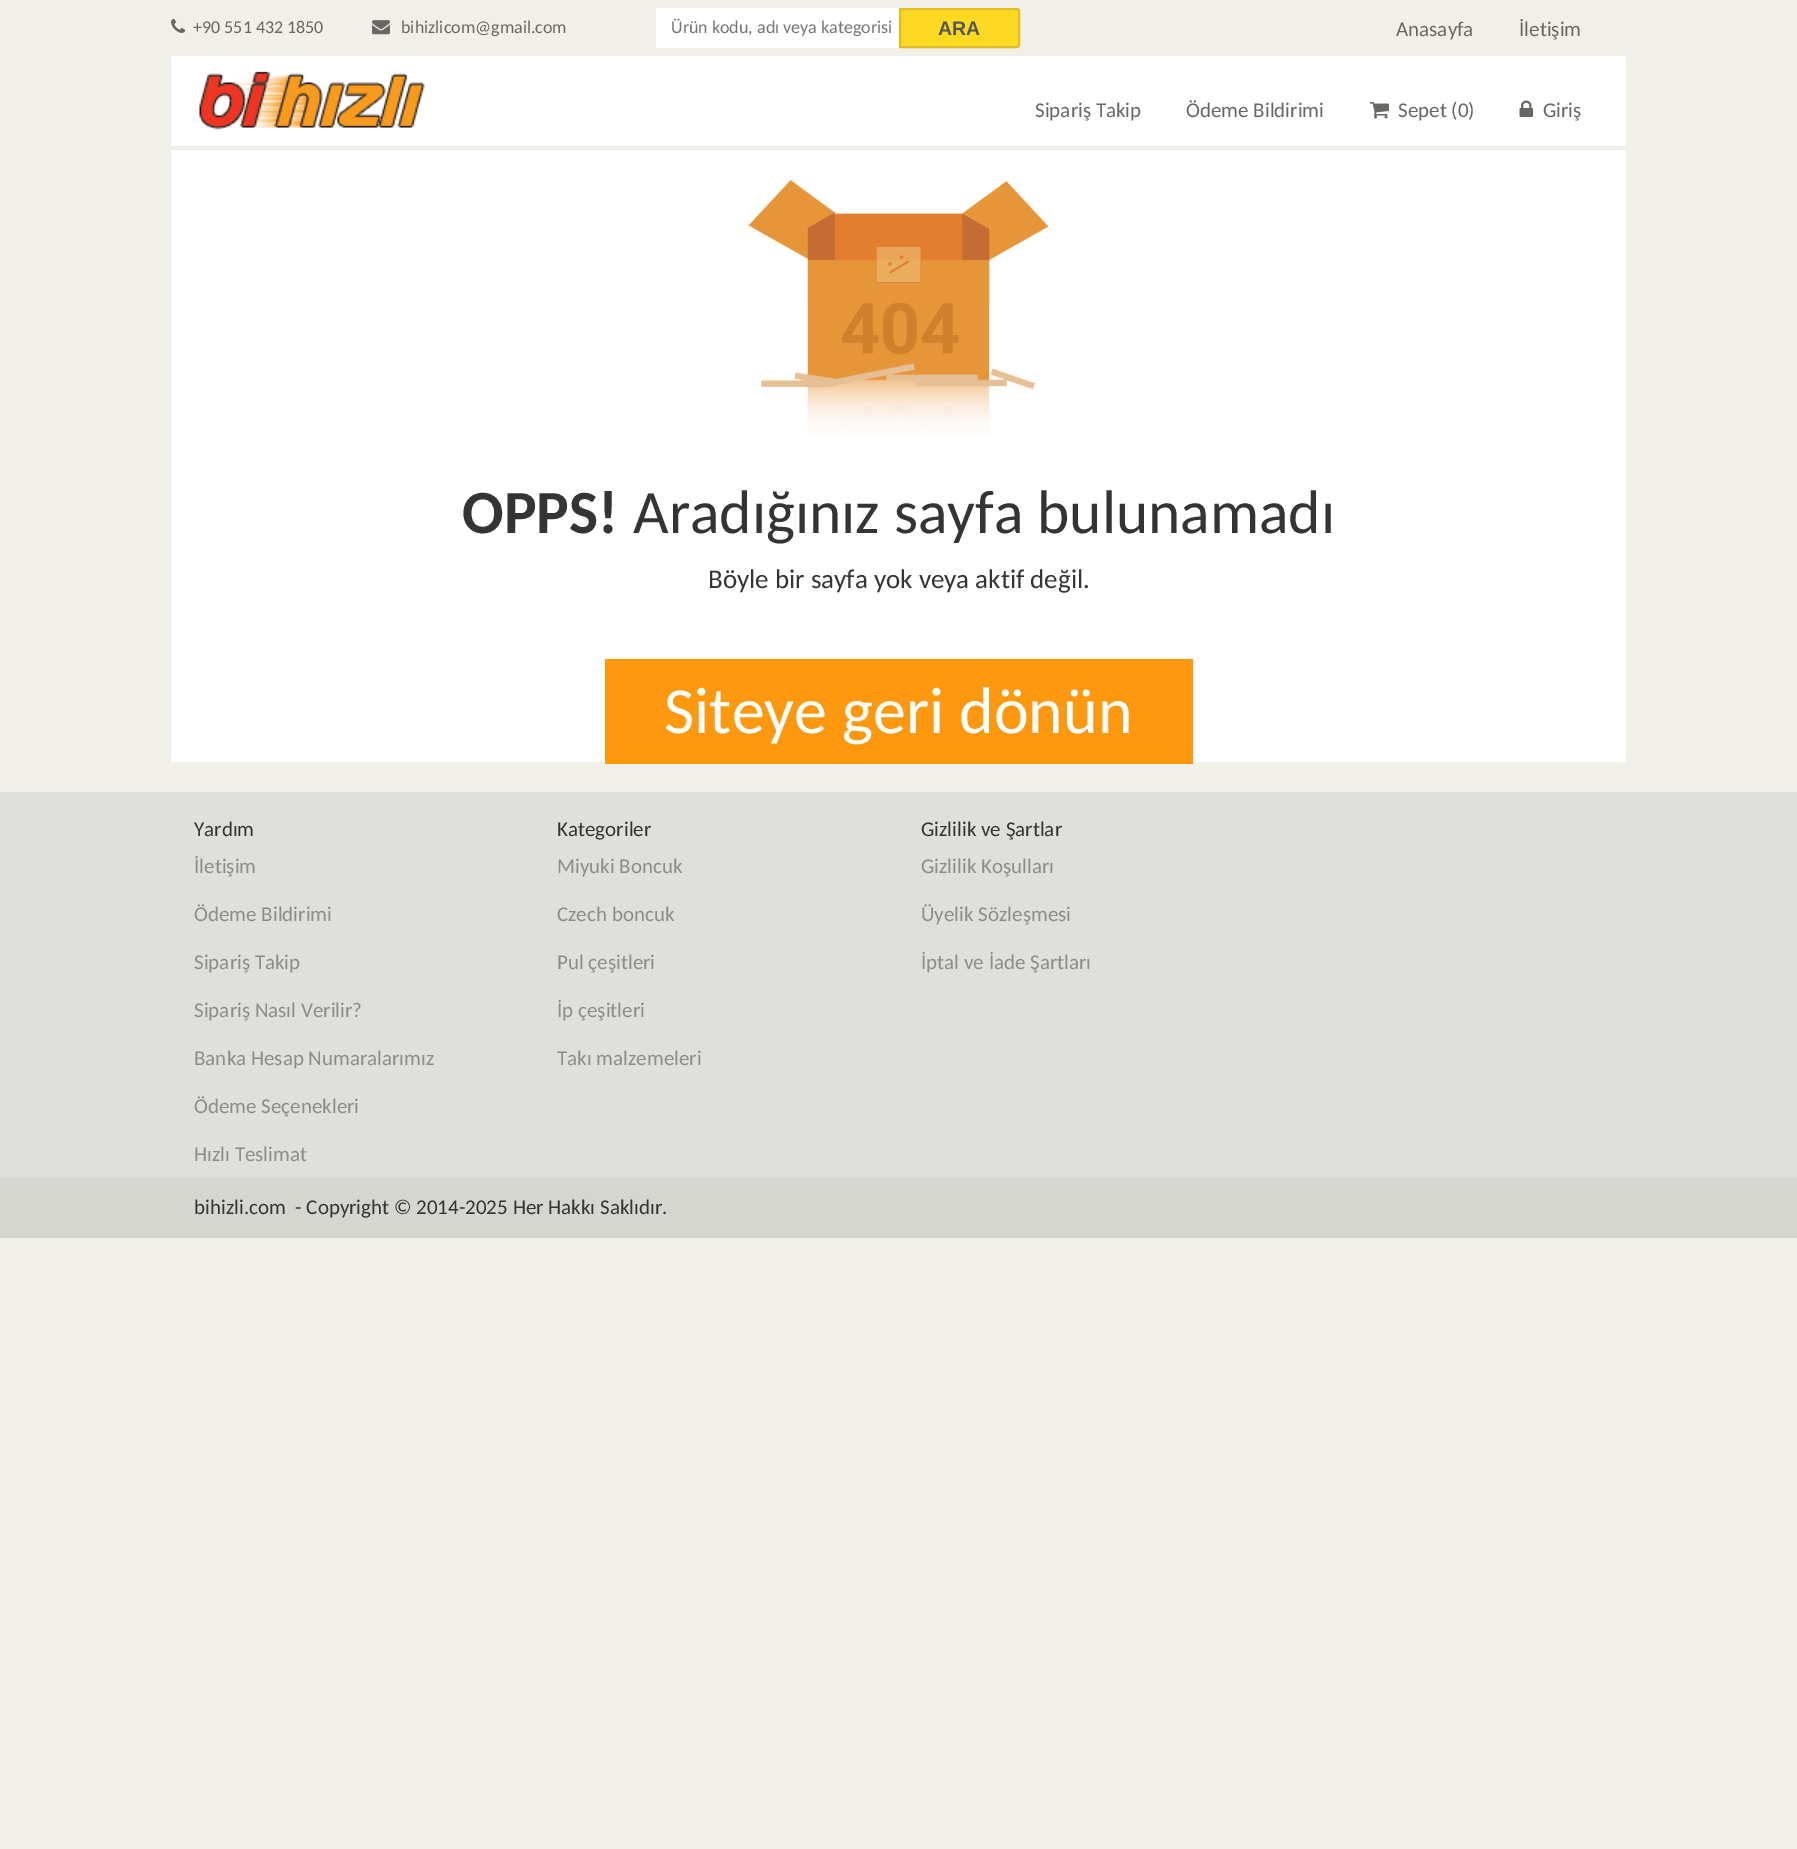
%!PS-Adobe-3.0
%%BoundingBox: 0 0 1797 1849
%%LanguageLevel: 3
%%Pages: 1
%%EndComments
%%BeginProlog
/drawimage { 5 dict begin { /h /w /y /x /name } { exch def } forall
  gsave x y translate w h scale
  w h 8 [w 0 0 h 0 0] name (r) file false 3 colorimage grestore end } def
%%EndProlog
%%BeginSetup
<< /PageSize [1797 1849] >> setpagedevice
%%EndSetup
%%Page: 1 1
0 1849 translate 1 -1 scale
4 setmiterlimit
0.941 0.941 0.914 setrgbcolor
0 0 1797 1849 rectfill
1 setgray
171 56 1455 90 rectfill
(images/1.raw) 171 18 15 15 drawimage
(images/2.raw) 372 20 18 15 drawimage
656 8 243 40 rectfill
0.992 0.851 0.133 setrgbcolor
newpath 900 9 moveto 1017 9 lineto 1018 9 1019 10 1019 11 curveto 1019 45 lineto 1019 46 1018 47 1017 47 curveto 900 47 lineto closepath gsave fill grestore
0.878 0.737 0.153 setrgbcolor
2 setlinewidth
stroke
(images/3.raw) 199 71 226 59 drawimage
(images/4.raw) 1369 102 20 17 drawimage
(images/5.raw) 1519 100 14 17 drawimage
1 setgray
171 150 1455 612 rectfill
(images/6.raw) 748 180 301 257 drawimage
0.996 0.596 0.059 setrgbcolor
605 659 588 105 rectfill
0.875 0.875 0.863 setrgbcolor
0 792 1797 386 rectfill
0.839 0.839 0.816 setrgbcolor
0 1178 1797 60 rectfill
/Carlito-Regular [18 0 0 -18 0 0] selectfont
0.412 0.404 0.388 setrgbcolor
193 33 moveto (+90 551 432 1850) show
401 33 moveto (bihizlicom@gmail.com) show
gsave
671 17 220 21 rectclip
0.459 setgray
671 33 moveto (Ürün kodu, adı veya kategorisi) show
grestore
/LiberationSans-Bold [19.5 0 0 -19.5 0 0] selectfont
0.337 setgray
938 35 moveto (ARA) show
/Carlito-Regular [21 0 0 -21 0 0] selectfont
0.412 0.404 0.388 setrgbcolor
1396 36 moveto (Anasayfa) show
1519 36 moveto (İletişim) show
1035 117 moveto (Sipariş Takip) show
1186 117 moveto (Ödeme Bildirimi) show
1398 117 moveto (Sepet \(0\)) show
1543 117 moveto (Giriş) show
/Carlito-Bold [61.5 0 0 -61.5 0 0] selectfont
0.212 0.204 0.196 setrgbcolor
462 533 moveto (OPPS!) show
/Carlito-Regular [61.5 0 0 -61.5 0 0] selectfont
633 533 moveto (Aradığınız sayfa bulunamadı) show
/Carlito-Regular [27 0 0 -27 0 0] selectfont
708 588 moveto (Böyle bir sayfa yok veya aktif değil.) show
/Carlito-Regular [66 0 0 -66 0 0] selectfont
1 setgray
664 733 moveto (Siteye geri dönün) show
/Carlito-Regular [21 0 0 -21 0 0] selectfont
0.212 0.204 0.196 setrgbcolor
194 836 moveto (Yardım) show
0.549 0.549 0.533 setrgbcolor
194 873 moveto (İletişim) show
194 921 moveto (Ödeme Bildirimi) show
194 969 moveto (Sipariş Takip) show
194 1017 moveto (Sipariş Nasıl Verilir?) show
194 1065 moveto (Banka Hesap Numaralarımız) show
194 1113 moveto (Ödeme Seçenekleri) show
194 1161 moveto (Hızlı Teslimat) show
0.212 0.204 0.196 setrgbcolor
557 836 moveto (Kategoriler) show
0.549 0.549 0.533 setrgbcolor
557 873 moveto (Miyuki Boncuk) show
557 921 moveto (Czech boncuk) show
557 969 moveto (Pul çeşitleri) show
557 1017 moveto (İp çeşitleri) show
557 1065 moveto (Takı malzemeleri) show
0.212 0.204 0.196 setrgbcolor
921 836 moveto (Gizlilik ve Şartlar) show
0.549 0.549 0.533 setrgbcolor
921 873 moveto (Gizlilik Koşulları) show
921 921 moveto (Üyelik Sözleşmesi) show
921 969 moveto (İptal ve İade Şartları) show
0.212 0.204 0.196 setrgbcolor
194 1214 moveto (bihizli.com  - Copyright © 2014-2025 Her Hakkı Saklıdır.) show
showpage
%%EOF
